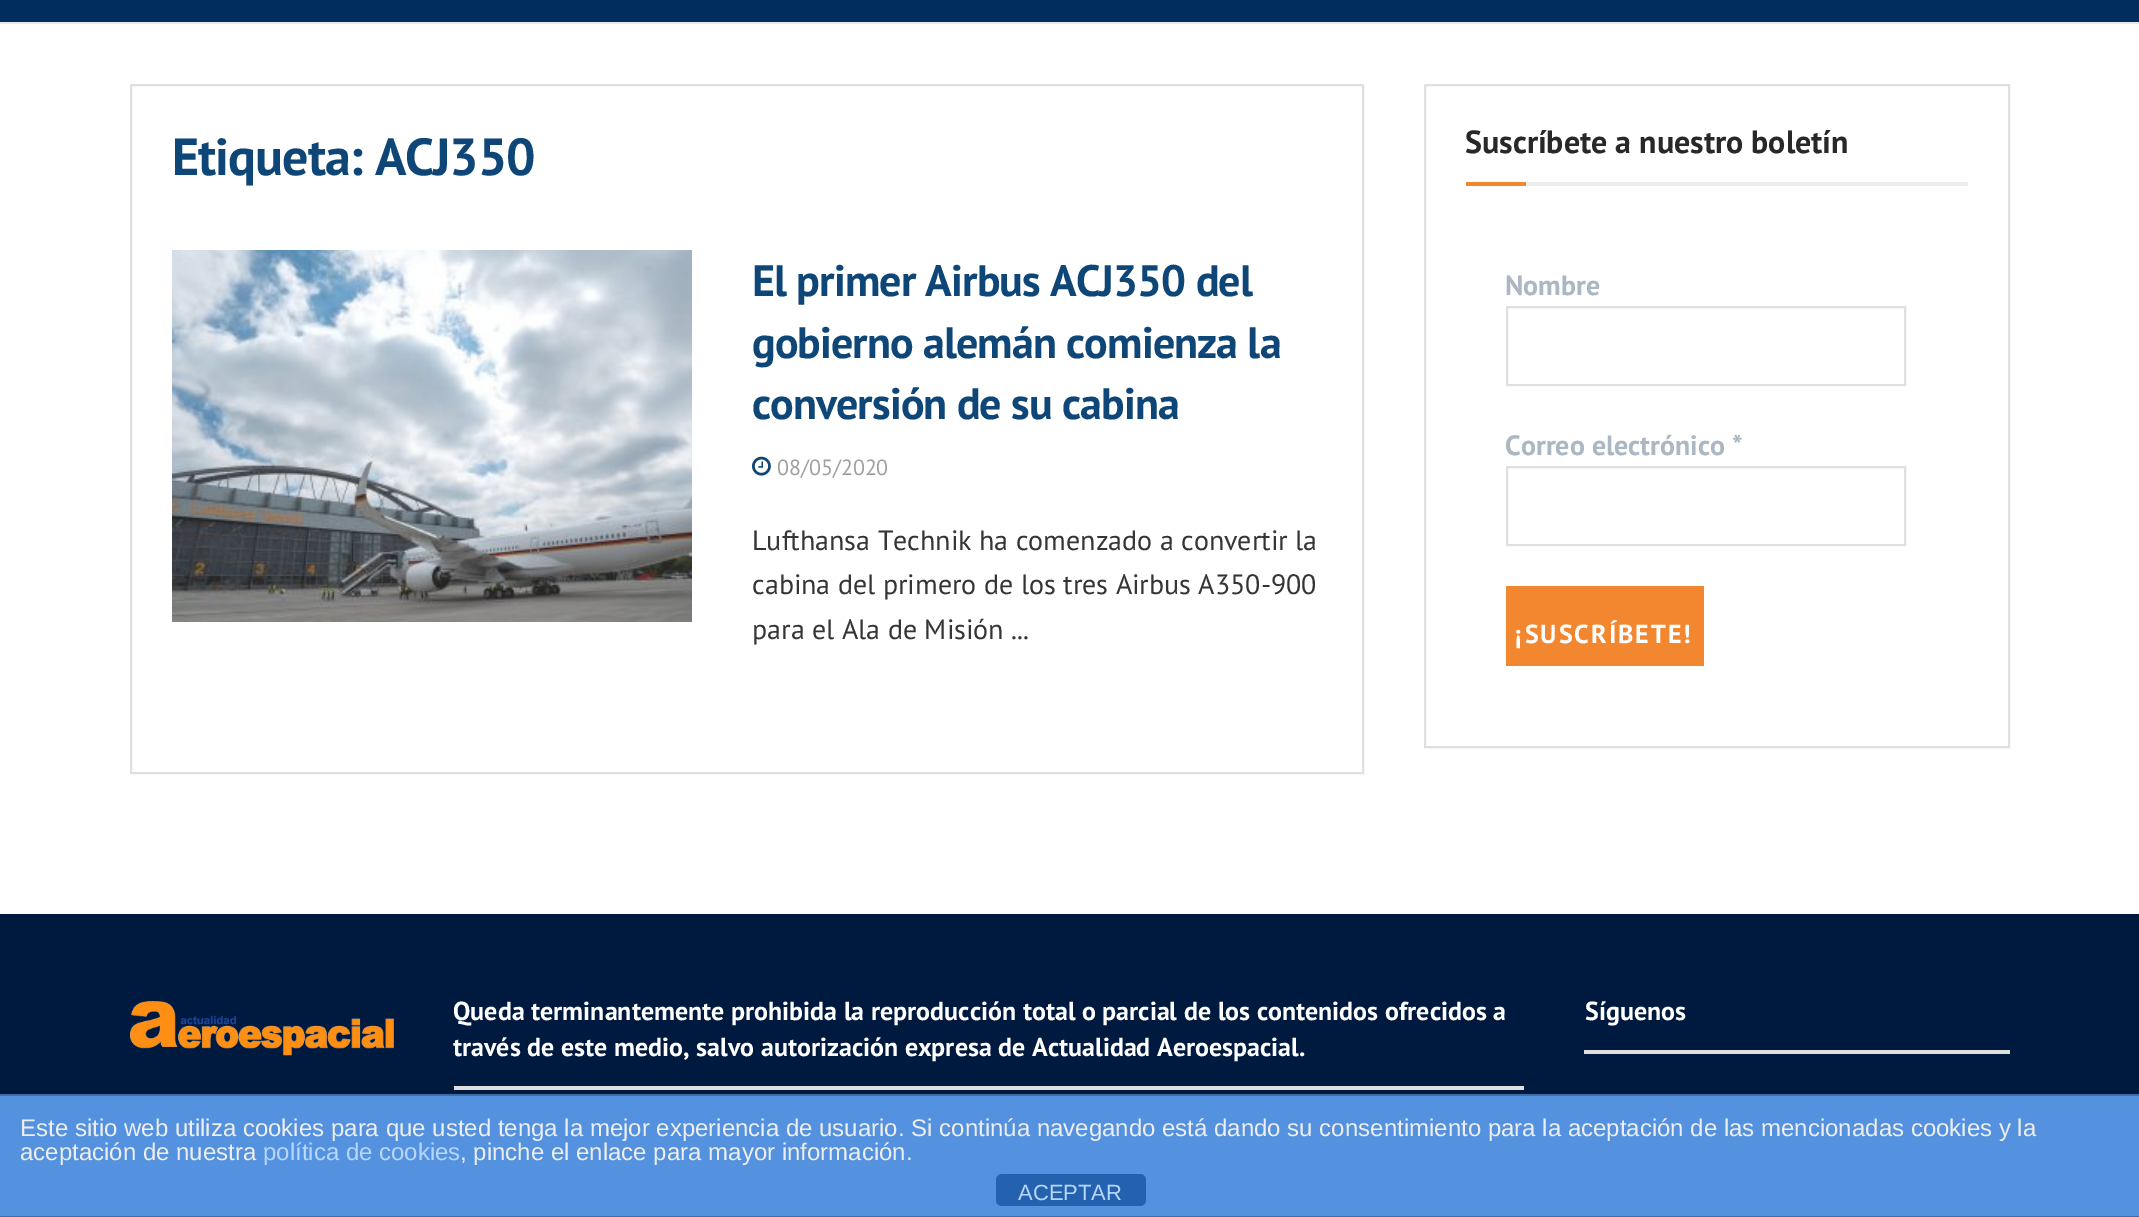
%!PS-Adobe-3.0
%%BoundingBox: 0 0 2139 1217
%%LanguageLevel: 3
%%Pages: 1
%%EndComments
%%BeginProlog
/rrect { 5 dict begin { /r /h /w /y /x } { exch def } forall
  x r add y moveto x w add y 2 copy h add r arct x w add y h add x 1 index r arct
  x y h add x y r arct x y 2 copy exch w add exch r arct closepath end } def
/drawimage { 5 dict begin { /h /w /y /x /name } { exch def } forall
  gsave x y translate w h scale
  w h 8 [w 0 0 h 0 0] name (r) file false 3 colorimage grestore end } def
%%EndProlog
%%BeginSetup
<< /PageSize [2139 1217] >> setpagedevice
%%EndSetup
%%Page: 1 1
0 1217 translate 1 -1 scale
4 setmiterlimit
1 setgray
0 0 2139 1217 rectfill
0 0.173 0.369 setrgbcolor
0 0 2139 22 rectfill
0.91 setgray
0 22 2139 2 rectfill
0.878 setgray
2 setlinewidth
131 85 1232 688 rectstroke
(images/1.raw) 172 250 520 372 drawimage
(images/2.raw) 752 456 19 20 drawimage
1425 85 584 662 rectstroke
0.933 setgray
1526 182 442 4 rectfill
0.953 0.529 0.188 setrgbcolor
1466 182 60 4 rectfill
0.878 setgray
1507 307 398 78 rectstroke
1507 467 398 78 rectstroke
0.953 0.529 0.188 setrgbcolor
1506 586 198 80 rectfill
0 0.098 0.247 setrgbcolor
0 914 2139 180 rectfill
(images/3.raw) 130 1001 264 55 drawimage
0.878 setgray
454 1086 1070 4 rectfill
1584 1050 426 4 rectfill
0.329 0.573 0.878 setrgbcolor
0 1096 2139 120 rectfill
0.247 0.427 0.655 setrgbcolor
0 1094 2139 2 rectfill
0 1216 2139 1 rectfill
0.141 0.384 0.69 setrgbcolor
996 1174 150 32 6 rrect fill
/PTSans-Bold [52 0 0 -52 0 0] selectfont
0.051 0.275 0.467 setrgbcolor
172 175 moveto -1 0 (Etiqueta: ACJ350) ashow
/PTSans-Bold [44 0 0 -44 0 0] selectfont
752 296 moveto -0.9 0 (El primer Airbus ACJ350 del) ashow
752 358 moveto -0.9 0 (gobierno alemán comienza la) ashow
752 419 moveto -0.9 0 (conversión de su cabina) ashow
/PTSans-Regular [22 0 0 -22 0 0] selectfont
0.627 setgray
777 475 moveto (08/05/2020) show
/PTSans-Regular [28 0 0 -28 0 0] selectfont
0.208 setgray
752 550 moveto (Lufthansa Technik ha comenzado a convertir la) show
752 594 moveto (cabina del primero de los tres Airbus A350-900) show
752 639 moveto (para el Ala de Misión ...) show
/PTSans-Bold [32 0 0 -32 0 0] selectfont
0.157 setgray
1465 153 moveto (Suscríbete a nuestro boletín) show
/PTSans-Bold [28 0 0 -28 0 0] selectfont
0.671 0.722 0.765 setrgbcolor
1505 295 moveto (Nombre) show
1505 455 moveto (Correo electrónico *) show
/PTSans-Bold [26 0 0 -26 0 0] selectfont
1 setgray
1515 643 moveto 2 0 (¡SUSCRÍBETE!) ashow
453 1020 moveto (Queda terminantemente prohibida la reproducción total o parcial de los contenidos ofrecidos a) show
453 1056 moveto (través de este medio, salvo autorización expresa de Actualidad Aeroespacial.) show
1585 1020 moveto (Síguenos) show
/LiberationSans-Regular [24 0 0 -24 0 0] selectfont
0.933 setgray
20 1136 moveto (Este sitio web utiliza cookies para que usted tenga la mejor experiencia de usuario. Si continúa navegando está dando su consentimiento para la aceptación de las mencionadas cookies y la) show
20 1160 moveto (aceptación de nuestra) show
0.718 0.843 1 setrgbcolor
263 1160 moveto (política de cookies) show
0.933 setgray
460 1160 moveto (, pinche el enlace para mayor información.) show
/LiberationSans-Regular [22 0 0 -22 0 0] selectfont
0.718 0.843 1 setrgbcolor
1018 1200 moveto (ACEPTAR) show
showpage
%%EOF
